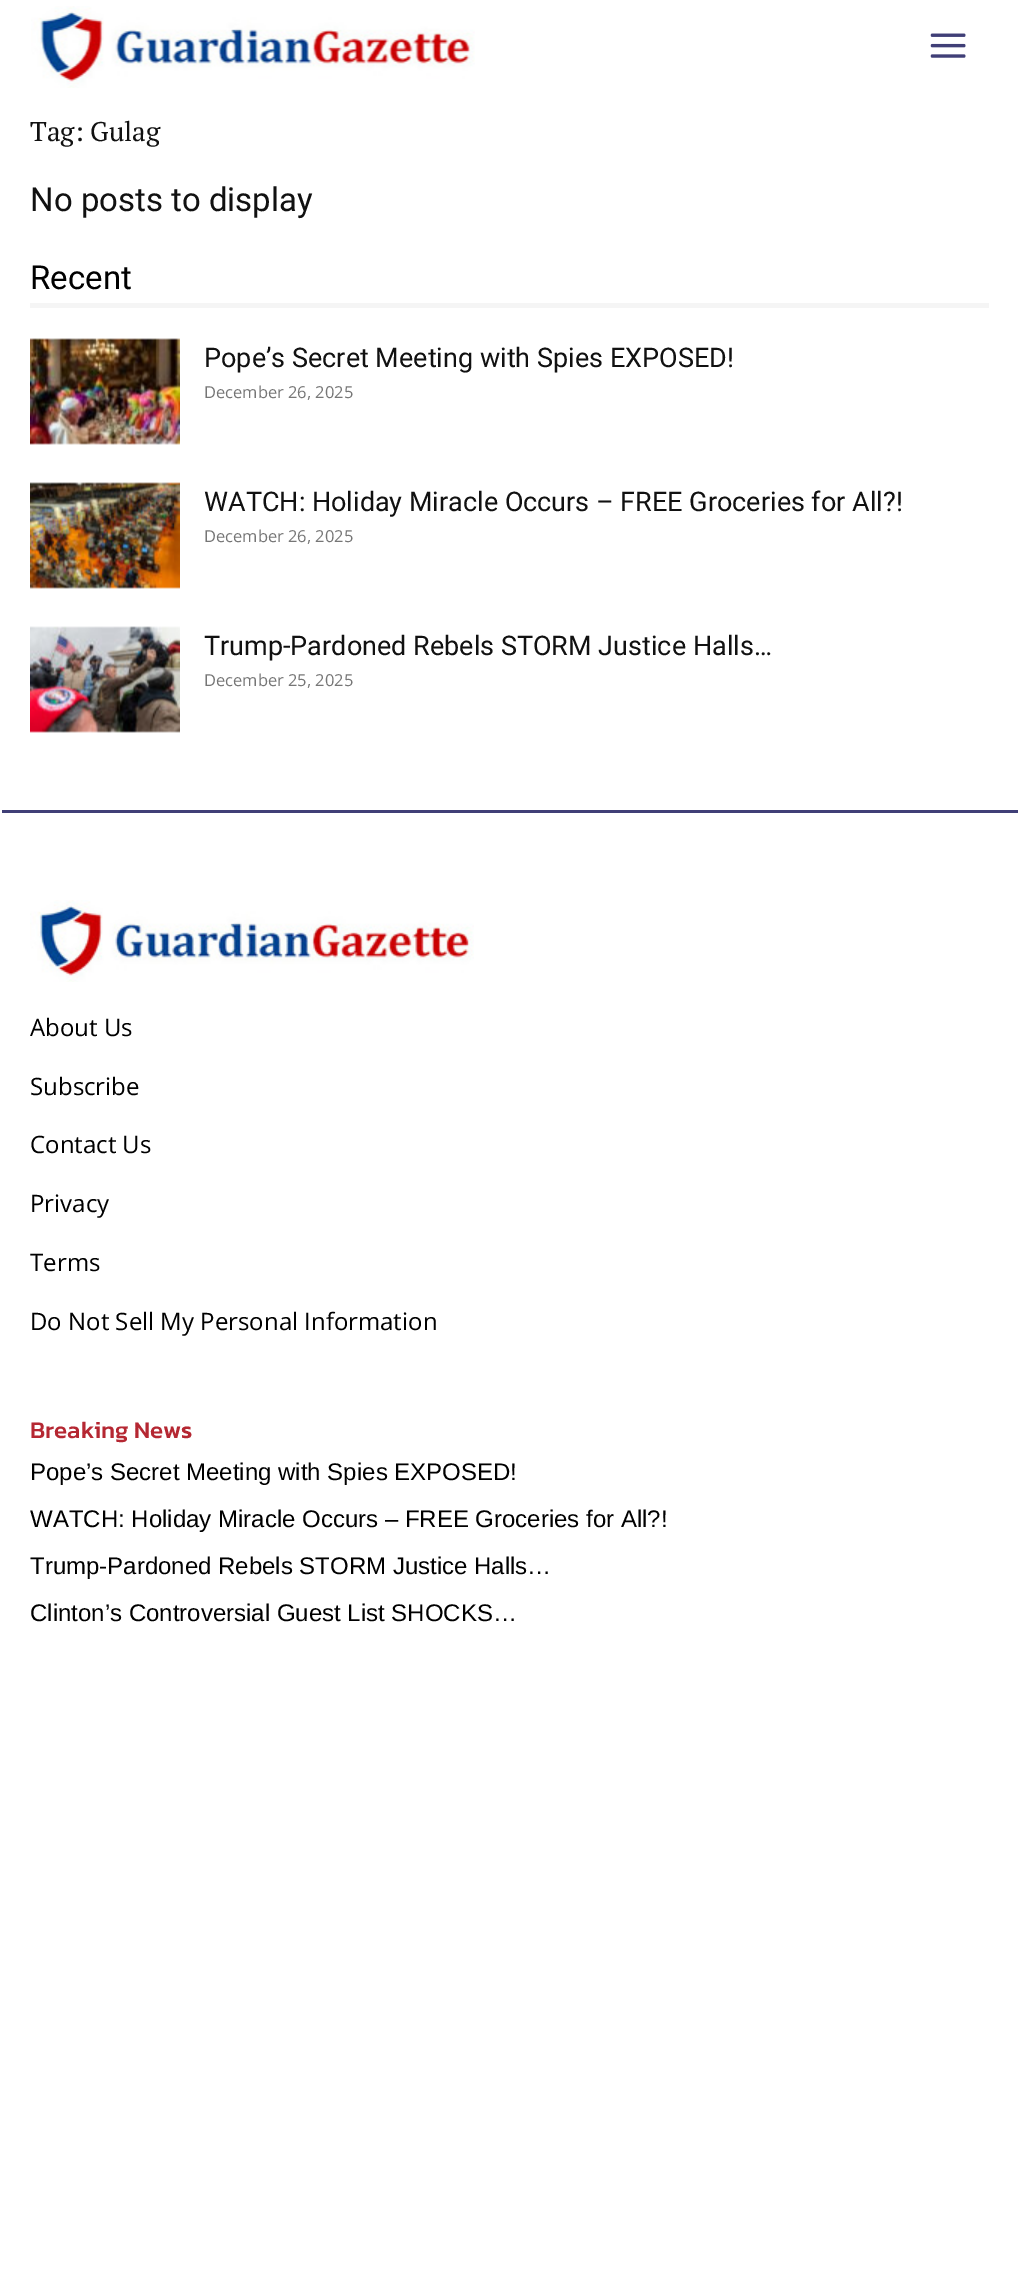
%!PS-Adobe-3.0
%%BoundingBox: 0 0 1018 2294
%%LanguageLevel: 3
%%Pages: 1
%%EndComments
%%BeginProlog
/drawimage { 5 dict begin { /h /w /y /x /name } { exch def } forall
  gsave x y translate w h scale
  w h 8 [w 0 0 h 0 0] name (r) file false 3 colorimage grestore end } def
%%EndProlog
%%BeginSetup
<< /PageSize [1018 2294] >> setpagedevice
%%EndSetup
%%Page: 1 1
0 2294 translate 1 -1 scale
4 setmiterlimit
1 setgray
0 0 1018 2294 rectfill
(images/1.raw) 31 6 444 82 drawimage
(images/2.raw) 930 33 36 25 drawimage
0.961 setgray
30 303 959 5 rectfill
(images/3.raw) 30 338 150 107 drawimage
(images/4.raw) 30 482 150 107 drawimage
(images/5.raw) 30 626 150 107 drawimage
0.251 0.247 0.467 setrgbcolor
2 810 1016 3 rectfill
(images/6.raw) 30 900 444 82 drawimage
/PTSerif-Regular [27 0 0 -27 0 0] selectfont
0.067 setgray
30 141 moveto (Tag: Gulag) show
/Roboto-Regular [33 0 0 -33 0 0] selectfont
30 211 moveto (No posts to display) show
0 setgray
30 289 moveto (Recent) show
/Roboto-Regular [27 0 0 -27 0 0] selectfont
0.067 setgray
204 367 moveto (Pope’s Secret Meeting with Spies EXPOSED!) show
/OpenSans-Regular [16.5 0 0 -16.5 0 0] selectfont
0.463 setgray
204 398 moveto (December 26, 2025) show
/Roboto-Regular [27 0 0 -27 0 0] selectfont
0.067 setgray
204 511 moveto (WATCH: Holiday Miracle Occurs – FREE Groceries for All?!) show
/OpenSans-Regular [16.5 0 0 -16.5 0 0] selectfont
0.463 setgray
204 542 moveto (December 26, 2025) show
/Roboto-Regular [27 0 0 -27 0 0] selectfont
0.067 setgray
204 655 moveto (Trump-Pardoned Rebels STORM Justice Halls…) show
/OpenSans-Regular [16.5 0 0 -16.5 0 0] selectfont
0.463 setgray
204 686 moveto (December 25, 2025) show
/OpenSans-Regular [24 0 0 -24 0 0] selectfont
0 setgray
30 1036 moveto (About Us) show
30 1095 moveto (Subscribe) show
30 1153 moveto (Contact Us) show
30 1212 moveto (Privacy) show
30 1271 moveto (Terms) show
30 1330 moveto (Do Not Sell My Personal Information) show
/Kanit-Medium [24 0 0 -24 0 0] selectfont
0.71 0.153 0.196 setrgbcolor
30 1438 moveto (Breaking News) show
/LiberationSans-Regular [24 0 0 -24 0 0] selectfont
0 setgray
30 1480 moveto (Pope’s Secret Meeting with Spies EXPOSED!) show
30 1527 moveto (WATCH: Holiday Miracle Occurs – FREE Groceries for All?!) show
30 1574 moveto (Trump-Pardoned Rebels STORM Justice Halls…) show
30 1621 moveto (Clinton’s Controversial Guest List SHOCKS…) show
showpage
%%EOF
